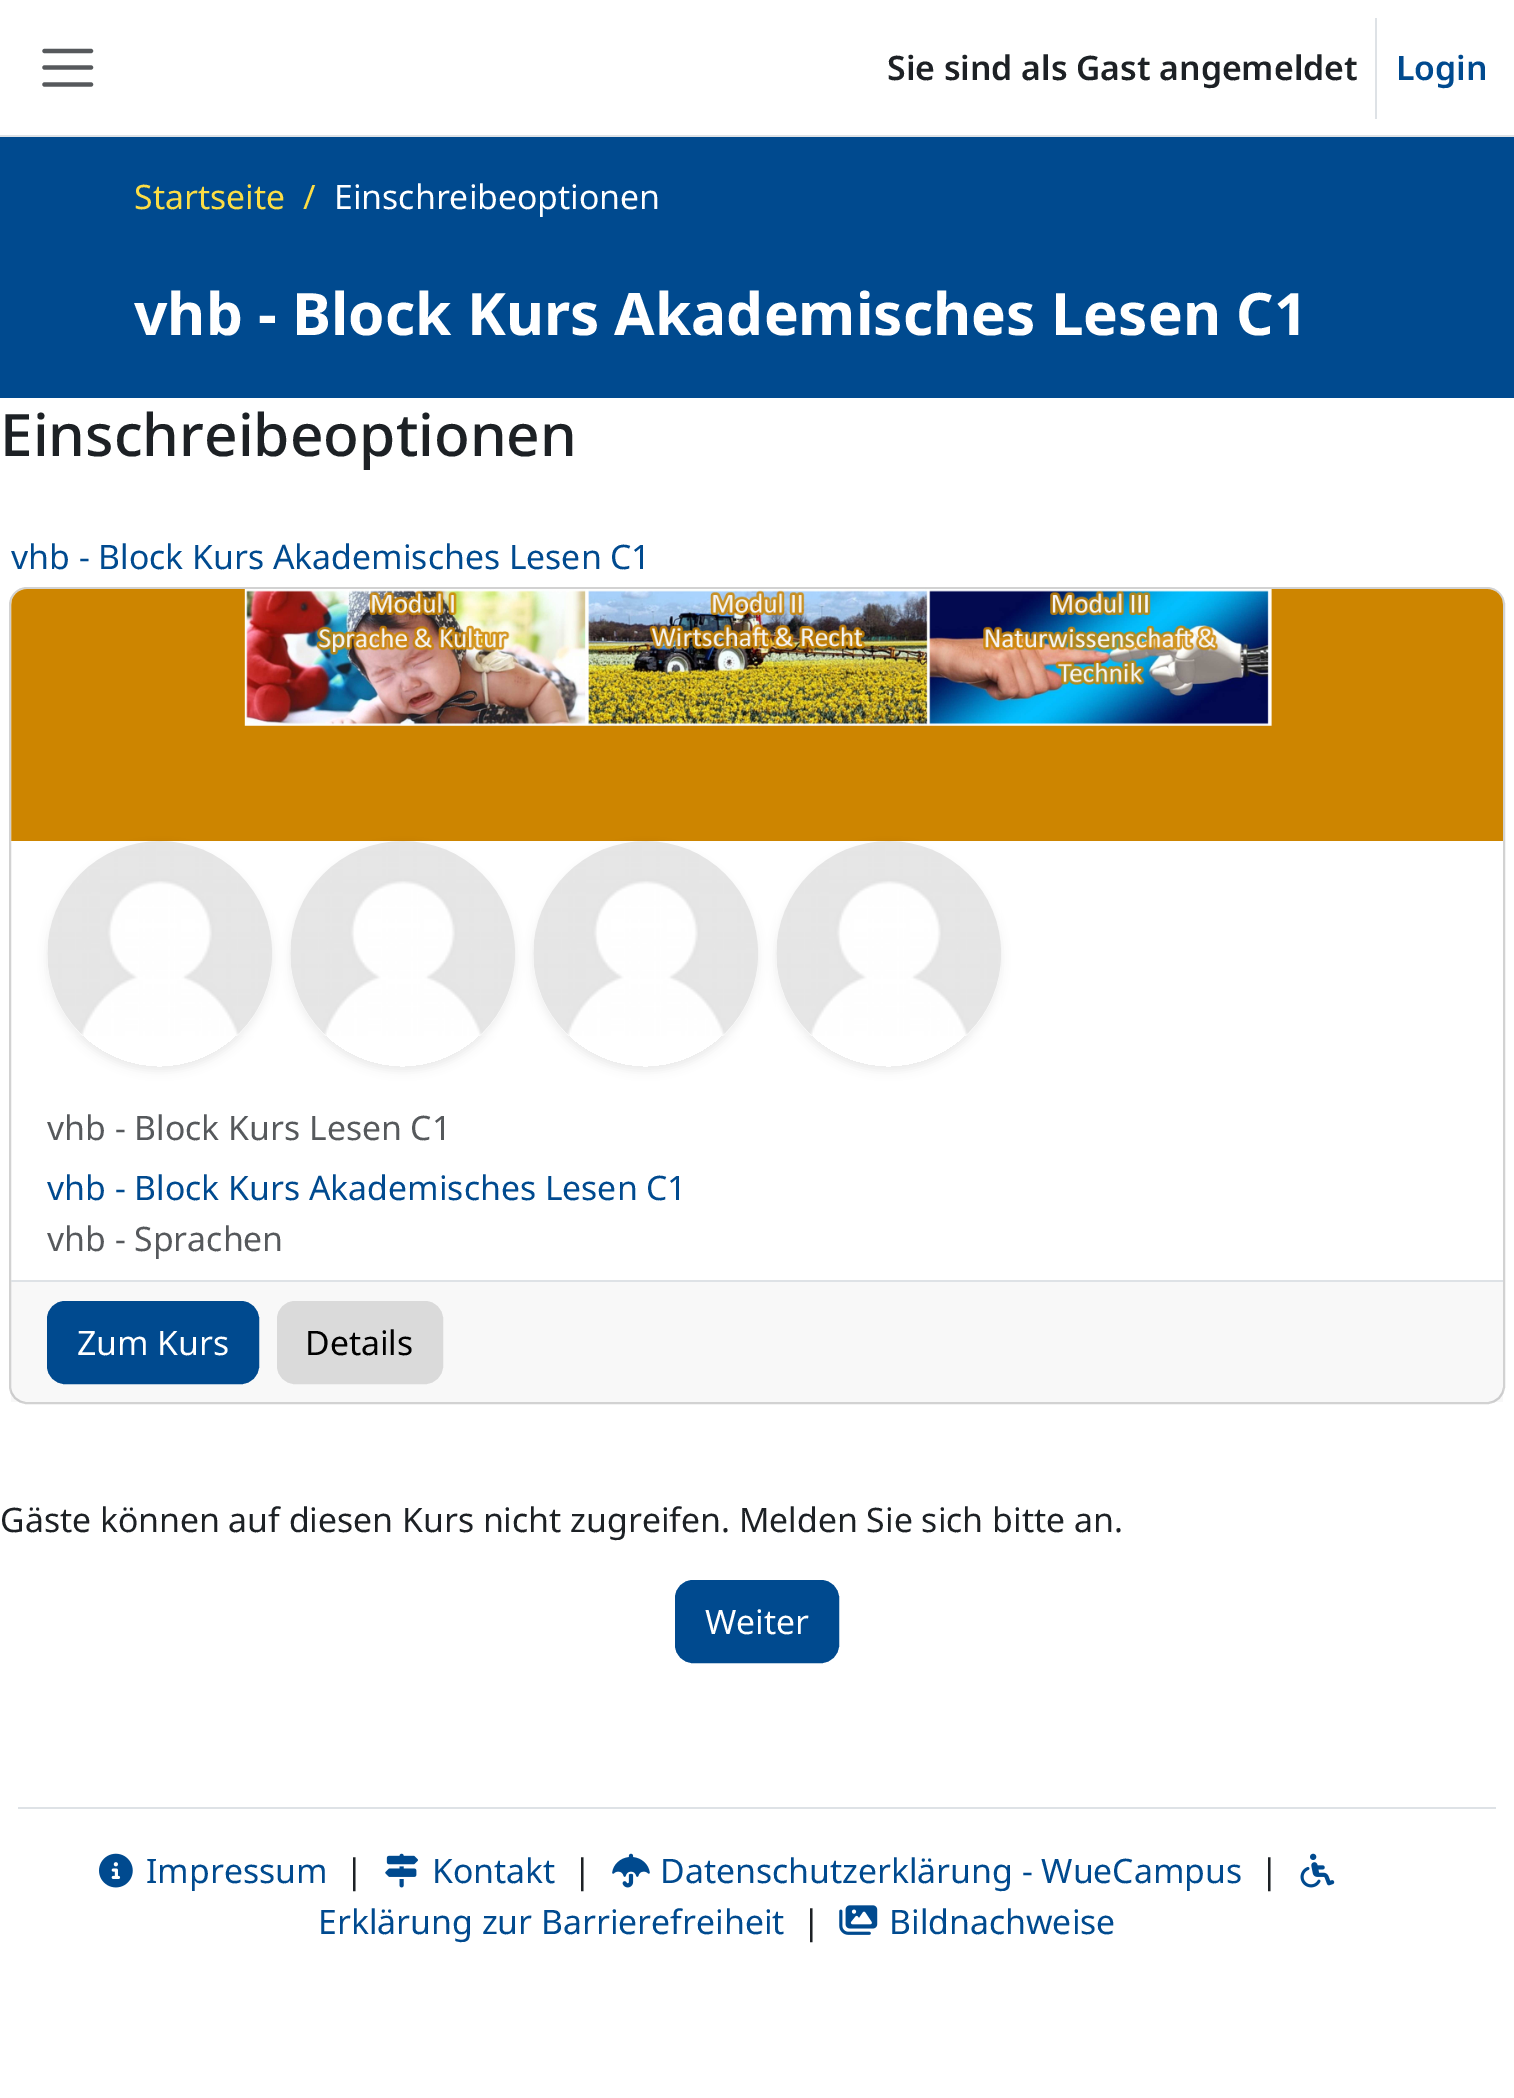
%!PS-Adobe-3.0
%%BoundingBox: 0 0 1514 2098
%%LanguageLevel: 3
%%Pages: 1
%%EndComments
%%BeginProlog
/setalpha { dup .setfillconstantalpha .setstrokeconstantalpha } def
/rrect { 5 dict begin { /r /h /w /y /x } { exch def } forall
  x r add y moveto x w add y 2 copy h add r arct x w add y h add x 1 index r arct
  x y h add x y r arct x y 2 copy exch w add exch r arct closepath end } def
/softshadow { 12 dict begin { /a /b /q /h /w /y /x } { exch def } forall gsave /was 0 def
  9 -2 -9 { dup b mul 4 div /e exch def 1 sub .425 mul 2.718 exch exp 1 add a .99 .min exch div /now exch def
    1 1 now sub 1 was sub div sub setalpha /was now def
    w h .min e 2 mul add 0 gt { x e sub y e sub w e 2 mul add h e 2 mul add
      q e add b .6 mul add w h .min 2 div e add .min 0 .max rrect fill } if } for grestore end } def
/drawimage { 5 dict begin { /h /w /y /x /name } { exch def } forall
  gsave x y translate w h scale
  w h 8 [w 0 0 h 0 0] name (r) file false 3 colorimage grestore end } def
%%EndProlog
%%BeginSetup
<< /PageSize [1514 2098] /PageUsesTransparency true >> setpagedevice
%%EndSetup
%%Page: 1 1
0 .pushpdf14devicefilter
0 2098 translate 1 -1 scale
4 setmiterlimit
1 setgray
0 0 1514 2098 rectfill
0.871 0.886 0.902 setrgbcolor
0 135 1514 2 rectfill
0.337 0.349 0.361 setrgbcolor
4.2 setlinewidth
1 setlinecap
newpath 44.5 51 moveto 91 51 lineto 44.5 67.5 moveto 91 67.5 lineto 44.5 84.5 moveto 91 84.5 lineto stroke
0.871 0.886 0.902 setrgbcolor
1375 18 2 101 rectfill
0 0.29 0.561 setrgbcolor
0 137 1514 261 rectfill
0.824 setgray
2 setlinewidth
0 setlinecap
10 588 1494 815 17 rrect stroke
(images/1.raw) 11 589 1492 252 drawimage
gsave
newpath 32 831 moveto 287 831 lineto 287 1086 lineto 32 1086 lineto closepath 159.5 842 moveto 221.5 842 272 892.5 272 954.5 curveto 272 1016.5 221.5 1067 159.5 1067 curveto 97.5 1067 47 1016.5 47 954.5 curveto 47 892.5 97.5 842 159.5 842 curveto closepath eoclip newpath
0 setgray
47 846 225 225 112.5 4.5 0.07 softshadow
grestore
(images/2.raw) 47 841 225 195 drawimage
gsave
newpath 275 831 moveto 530 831 lineto 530 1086 lineto 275 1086 lineto closepath 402.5 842 moveto 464.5 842 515 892.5 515 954.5 curveto 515 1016.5 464.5 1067 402.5 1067 curveto 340.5 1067 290 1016.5 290 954.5 curveto 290 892.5 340.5 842 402.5 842 curveto closepath eoclip newpath
0 setgray
290 846 225 225 112.5 4.5 0.07 softshadow
grestore
(images/3.raw) 290 841 225 195 drawimage
gsave
newpath 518 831 moveto 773 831 lineto 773 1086 lineto 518 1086 lineto closepath 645.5 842 moveto 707.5 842 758 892.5 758 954.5 curveto 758 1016.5 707.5 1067 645.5 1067 curveto 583.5 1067 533 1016.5 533 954.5 curveto 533 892.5 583.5 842 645.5 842 curveto closepath eoclip newpath
0 setgray
533 846 225 225 112.5 4.5 0.07 softshadow
grestore
(images/4.raw) 533 841 225 195 drawimage
gsave
newpath 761 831 moveto 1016 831 lineto 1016 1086 lineto 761 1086 lineto closepath 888.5 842 moveto 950.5 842 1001 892.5 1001 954.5 curveto 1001 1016.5 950.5 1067 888.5 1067 curveto 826.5 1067 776 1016.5 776 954.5 curveto 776 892.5 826.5 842 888.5 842 curveto closepath eoclip newpath
0 setgray
776 846 225 225 112.5 4.5 0.07 softshadow
grestore
(images/5.raw) 776 841 225 195 drawimage
0.03 setalpha
0.114 0.129 0.145 setrgbcolor
11 1282 1492 120 rectfill
1 setalpha
0.871 0.886 0.902 setrgbcolor
11 1280 1492 2 rectfill
0 0.29 0.561 setrgbcolor
48 1302 210 81 17 rrect gsave fill grestore
stroke
0.855 setgray
278 1302 164 81 17 rrect gsave fill grestore
stroke
0 0.29 0.561 setrgbcolor
676 1581 162 81 17 rrect gsave fill grestore
stroke
0.871 0.886 0.902 setrgbcolor
18 1807 1478 2 rectfill
(images/6.raw) 99 1853 34 35 drawimage
(images/7.raw) 385 1853 33 35 drawimage
(images/8.raw) 612 1853 38 35 drawimage
(images/9.raw) 1300 1853 35 35 drawimage
(images/10.raw) 839 1905 39 30 drawimage
/NotoSans-SemiBold [33.75 0 0 -33.75 0 0] selectfont
0.114 0.129 0.145 setrgbcolor
887 80 moveto (Sie sind als Gast angemeldet) show
0 0.29 0.561 setrgbcolor
1396 80 moveto (Login) show
/NotoSans-Regular [33.75 0 0 -33.75 0 0] selectfont
0.988 0.867 0.271 setrgbcolor
134 209 moveto (Startseite) show
303 209 moveto (/) show
1 setgray
334 209 moveto (Einschreibeoptionen) show
/NotoSans-Bold [58.6 0 0 -58.6 0 0] selectfont
134 335 moveto (vhb - Block Kurs Akademisches Lesen C1) show
/NotoSans-Medium [58.6 0 0 -58.6 0 0] selectfont
0.114 0.129 0.145 setrgbcolor
0 456 moveto (Einschreibeoptionen) show
/NotoSans-Regular [33.75 0 0 -33.75 0 0] selectfont
0 0.29 0.561 setrgbcolor
11 569 moveto (vhb - Block Kurs Akademisches Lesen C1) show
0.337 0.349 0.361 setrgbcolor
47 1140 moveto (vhb - Block Kurs Lesen C1) show
0 0.29 0.561 setrgbcolor
47 1200 moveto (vhb - Block Kurs Akademisches Lesen C1) show
0.337 0.349 0.361 setrgbcolor
47 1251 moveto (vhb - Sprachen) show
1 setgray
77 1355 moveto (Zum Kurs) show
0 setgray
305 1355 moveto (Details) show
0.114 0.129 0.145 setrgbcolor
0 1532 moveto (Gäste können auf diesen Kurs nicht zugreifen. Melden Sie sich bitte an.) show
1 setgray
705 1634 moveto (Weiter) show
0 0.29 0.561 setrgbcolor
146 1883 moveto (Impressum) show
0.114 0.129 0.145 setrgbcolor
345 1883 moveto (|) show
0 0.29 0.561 setrgbcolor
432 1883 moveto (Kontakt) show
0.114 0.129 0.145 setrgbcolor
573 1883 moveto (|) show
0 0.29 0.561 setrgbcolor
660 1883 moveto (Datenschutzerklärung - WueCampus) show
0.114 0.129 0.145 setrgbcolor
1260 1883 moveto (|) show
0 0.29 0.561 setrgbcolor
318 1934 moveto (Erklärung zur Barrierefreiheit) show
0.114 0.129 0.145 setrgbcolor
802 1934 moveto (|) show
0 0.29 0.561 setrgbcolor
889 1934 moveto (Bildnachweise) show
.poppdf14devicefilter showpage
%%EOF
